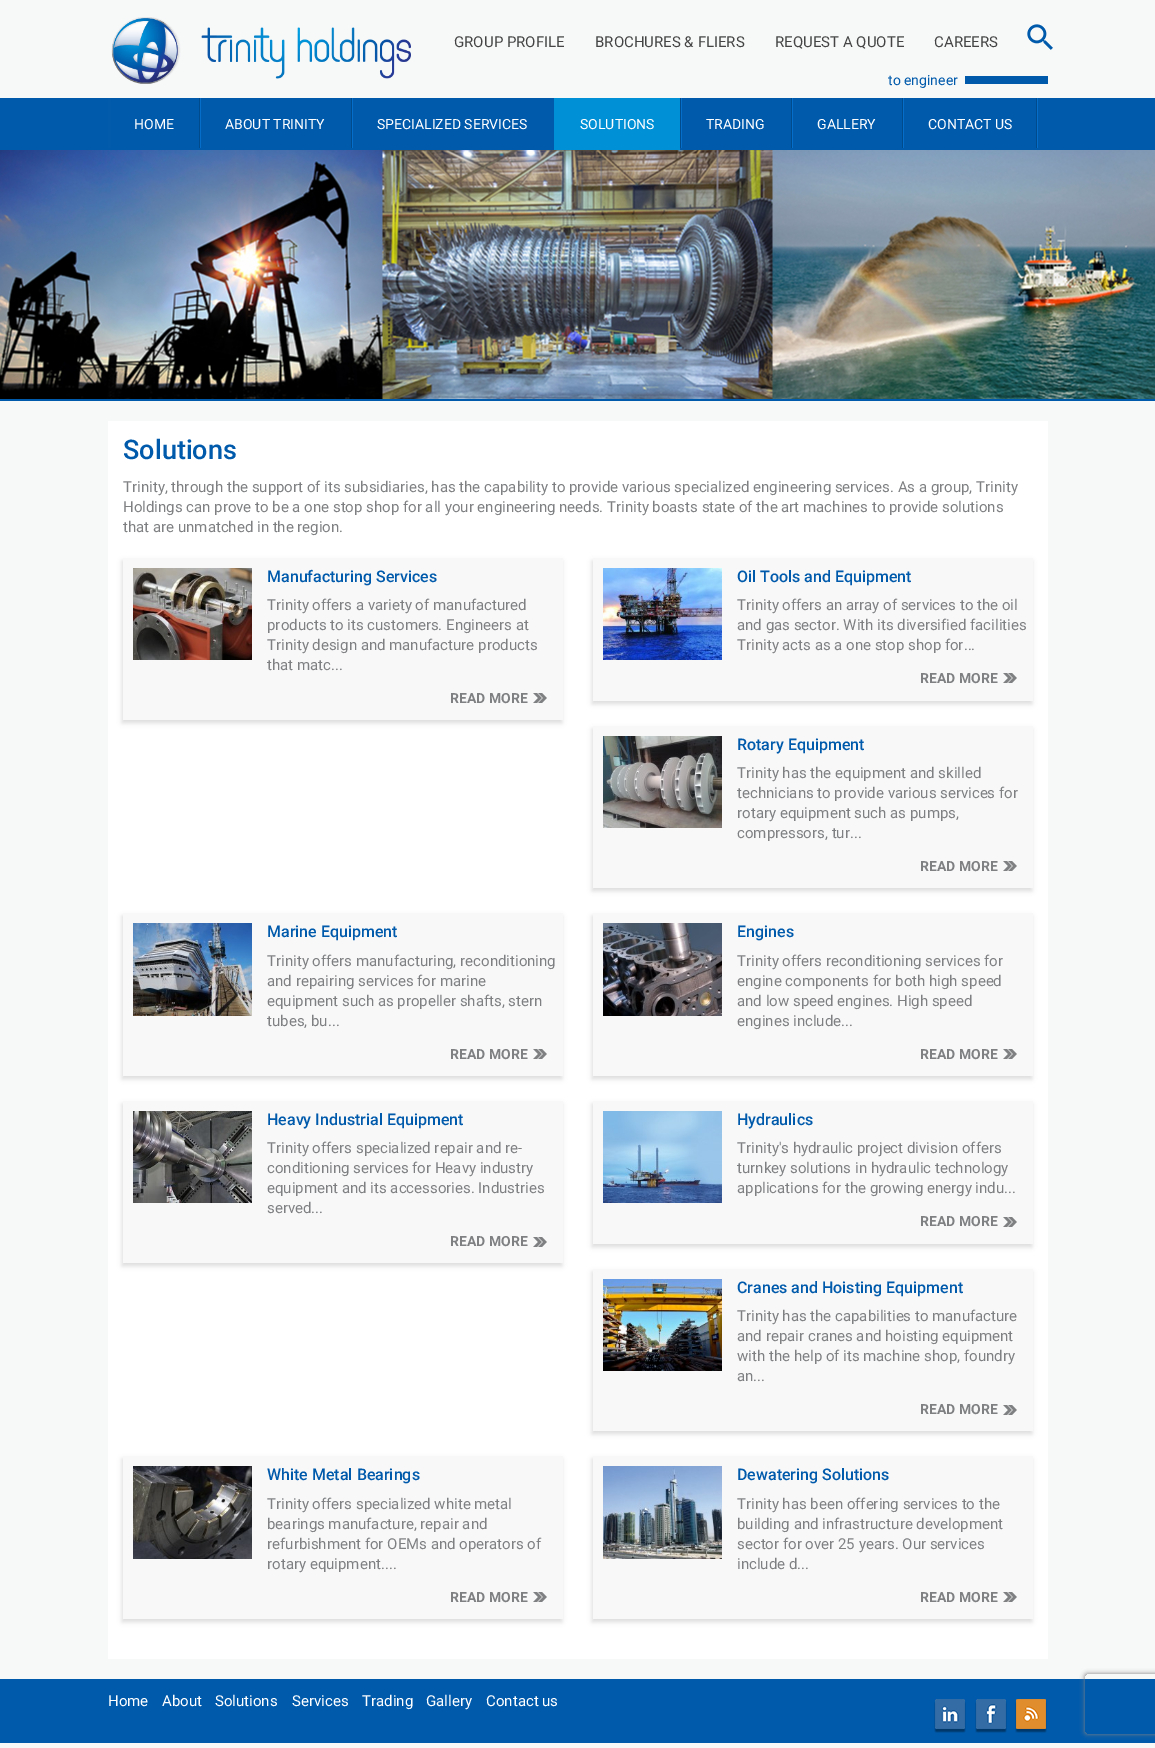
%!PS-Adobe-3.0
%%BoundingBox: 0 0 1155 1748
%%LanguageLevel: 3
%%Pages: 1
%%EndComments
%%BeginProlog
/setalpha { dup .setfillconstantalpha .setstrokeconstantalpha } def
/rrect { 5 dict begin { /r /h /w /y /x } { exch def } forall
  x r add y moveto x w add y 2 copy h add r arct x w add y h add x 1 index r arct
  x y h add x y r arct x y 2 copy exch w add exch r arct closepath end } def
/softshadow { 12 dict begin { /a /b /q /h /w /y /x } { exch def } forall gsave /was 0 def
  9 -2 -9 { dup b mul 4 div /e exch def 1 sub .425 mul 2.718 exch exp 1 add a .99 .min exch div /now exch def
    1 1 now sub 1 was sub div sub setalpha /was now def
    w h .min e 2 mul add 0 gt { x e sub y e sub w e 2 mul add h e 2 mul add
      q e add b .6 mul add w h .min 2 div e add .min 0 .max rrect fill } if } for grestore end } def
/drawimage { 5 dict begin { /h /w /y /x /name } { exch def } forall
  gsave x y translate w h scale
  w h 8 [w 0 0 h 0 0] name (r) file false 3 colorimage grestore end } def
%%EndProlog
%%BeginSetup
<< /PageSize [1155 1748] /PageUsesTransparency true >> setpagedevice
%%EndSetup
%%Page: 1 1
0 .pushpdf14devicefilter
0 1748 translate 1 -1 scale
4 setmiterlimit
0.969 0.973 0.973 setrgbcolor
0 0 1155 1748 rectfill
(images/1.raw) 111 17 300 67 drawimage
(images/2.raw) 1027 24 26 26 drawimage
0 0.353 0.671 setrgbcolor
965 76 83 8 rectfill
0 98 1155 52 rectfill
(images/3.raw) 1036 98 2 50 drawimage
0.012 0.361 0.671 setrgbcolor
108 98 3 50 rectfill
(images/3.raw) 199 98 2 50 drawimage
(images/3.raw) 351 98 2 50 drawimage
0 0.565 0.839 setrgbcolor
554 98 126 52 rectfill
(images/3.raw) 680 98 2 50 drawimage
(images/3.raw) 791 98 2 50 drawimage
(images/3.raw) 902 98 2 50 drawimage
0 0.353 0.671 setrgbcolor
0 399 1155 2 rectfill
(images/4.raw) 0 150 1155 249 drawimage
1 setgray
108 421 940 1238 rectfill
0.859 setgray
122 561 440 162 0 2.5 1 softshadow
0.973 setgray
123 558 440 162 rectfill
(images/5.raw) 133 568 119 92 drawimage
(images/6.raw) 533 693 14 10 drawimage
0.859 setgray
592 561 440 143 0 2.5 1 softshadow
0.973 setgray
593 558 440 143 rectfill
(images/7.raw) 603 568 119 92 drawimage
(images/6.raw) 1003 673 14 10 drawimage
0.859 setgray
592 729 440 162 0 2.5 1 softshadow
0.973 setgray
593 726 440 162 rectfill
(images/8.raw) 603 736 119 92 drawimage
(images/6.raw) 1003 861 14 10 drawimage
0.859 setgray
122 916 440 163 0 2.5 1 softshadow
0.973 setgray
123 913 440 163 rectfill
(images/9.raw) 133 923 119 93 drawimage
(images/6.raw) 533 1049 14 10 drawimage
0.859 setgray
592 916 440 163 0 2.5 1 softshadow
0.973 setgray
593 913 440 163 rectfill
(images/10.raw) 603 923 119 93 drawimage
(images/6.raw) 1003 1049 14 10 drawimage
0.859 setgray
122 1104 440 162 0 2.5 1 softshadow
0.973 setgray
123 1101 440 162 rectfill
(images/11.raw) 133 1111 119 92 drawimage
(images/6.raw) 533 1237 14 10 drawimage
0.859 setgray
592 1104 440 143 0 2.5 1 softshadow
0.973 setgray
593 1101 440 143 rectfill
(images/12.raw) 603 1111 119 92 drawimage
(images/6.raw) 1003 1217 14 10 drawimage
0.859 setgray
592 1272 440 162 0 2.5 1 softshadow
0.973 setgray
593 1269 440 162 rectfill
(images/13.raw) 603 1279 119 92 drawimage
(images/6.raw) 1003 1405 14 10 drawimage
0.859 setgray
122 1459 440 163 0 2.5 1 softshadow
0.973 setgray
123 1456 440 163 rectfill
(images/14.raw) 133 1466 119 93 drawimage
(images/6.raw) 533 1592 14 10 drawimage
0.859 setgray
592 1459 440 163 0 2.5 1 softshadow
0.973 setgray
593 1456 440 163 rectfill
(images/15.raw) 603 1466 119 93 drawimage
(images/6.raw) 1003 1592 14 10 drawimage
0 0.353 0.671 setrgbcolor
0 1679 1155 64 rectfill
(images/16.raw) 934 1699 32 34 drawimage
(images/17.raw) 975 1699 32 34 drawimage
(images/18.raw) 1015 1699 32 34 drawimage
gsave
newpath 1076 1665 moveto 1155 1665 lineto 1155 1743 lineto 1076 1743 lineto closepath 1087 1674 moveto 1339 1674 lineto 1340 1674 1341 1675 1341 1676 curveto 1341 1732 lineto 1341 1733 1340 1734 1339 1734 curveto 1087 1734 lineto 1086 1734 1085 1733 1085 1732 curveto 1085 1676 lineto 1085 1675 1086 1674 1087 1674 curveto closepath eoclip newpath
0.502 setgray
1085 1674 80 60 2 2.5 1 softshadow
grestore
/Roboto-Regular [15 0 0 -15 0 0] selectfont
0.271 setgray
454 47 moveto (GROUP PROFILE) show
595 47 moveto (BROCHURES & FLIERS) show
775 47 moveto (REQUEST A QUOTE) show
934 47 moveto (CAREERS) show
/Roboto-Regular [14 0 0 -14 0 0] selectfont
0 0.353 0.671 setrgbcolor
888 85 moveto (to engineer) show
1 setgray
134 129 moveto (HOME) show
225 129 moveto (ABOUT TRINITY) show
377 129 moveto (SPECIALIZED SERVICES) show
580 129 moveto (SOLUTIONS) show
706 129 moveto (TRADING) show
817 129 moveto (GALLERY) show
928 129 moveto (CONTACT US) show
/Roboto-Medium [27 0 0 -27 0 0] selectfont
0 0.353 0.671 setrgbcolor
123 459 moveto (Solutions) show
/Roboto-Regular [15 0 0 -15 0 0] selectfont
0.494 0.502 0.51 setrgbcolor
123 492 moveto (Trinity, through the support of its subsidiaries, has the capability to provide various specialized engineering services. As a group, Trinity) show
123 512 moveto (Holdings can prove to be a one stop shop for all your engineering needs. Trinity boasts state of the art machines to provide solutions) show
123 532 moveto (that are unmatched in the region.) show
/Roboto-Medium [16 0 0 -16 0 0] selectfont
0 0.353 0.671 setrgbcolor
267 582 moveto (Manufacturing Services) show
/Roboto-Regular [15 0 0 -15 0 0] selectfont
0.494 0.502 0.51 setrgbcolor
267 610 moveto (Trinity offers a variety of manufactured) show
267 630 moveto (products to its customers. Engineers at) show
267 650 moveto (Trinity design and manufacture products) show
267 670 moveto (that matc...) show
/Roboto-Bold [14 0 0 -14 0 0] selectfont
450 703 moveto (READ MORE) show
/Roboto-Medium [16 0 0 -16 0 0] selectfont
0 0.353 0.671 setrgbcolor
737 582 moveto (Oil Tools and Equipment) show
/Roboto-Regular [15 0 0 -15 0 0] selectfont
0.494 0.502 0.51 setrgbcolor
737 610 moveto (Trinity offers an array of services to the oil) show
737 630 moveto (and gas sector. With its diversified facilities) show
737 650 moveto (Trinity acts as a one stop shop for...) show
/Roboto-Bold [14 0 0 -14 0 0] selectfont
920 683 moveto (READ MORE) show
/Roboto-Medium [16 0 0 -16 0 0] selectfont
0 0.353 0.671 setrgbcolor
737 750 moveto (Rotary Equipment) show
/Roboto-Regular [15 0 0 -15 0 0] selectfont
0.494 0.502 0.51 setrgbcolor
737 778 moveto (Trinity has the equipment and skilled) show
737 798 moveto (technicians to provide various services for) show
737 818 moveto (rotary equipment such as pumps,) show
737 838 moveto (compressors, tur...) show
/Roboto-Bold [14 0 0 -14 0 0] selectfont
920 871 moveto (READ MORE) show
/Roboto-Medium [16 0 0 -16 0 0] selectfont
0 0.353 0.671 setrgbcolor
267 937 moveto (Marine Equipment) show
/Roboto-Regular [15 0 0 -15 0 0] selectfont
0.494 0.502 0.51 setrgbcolor
267 966 moveto (Trinity offers manufacturing, reconditioning) show
267 986 moveto (and repairing services for marine) show
267 1006 moveto (equipment such as propeller shafts, stern) show
267 1026 moveto (tubes, bu...) show
/Roboto-Bold [14 0 0 -14 0 0] selectfont
450 1059 moveto (READ MORE) show
/Roboto-Medium [16 0 0 -16 0 0] selectfont
0 0.353 0.671 setrgbcolor
737 937 moveto (Engines) show
/Roboto-Regular [15 0 0 -15 0 0] selectfont
0.494 0.502 0.51 setrgbcolor
737 966 moveto (Trinity offers reconditioning services for) show
737 986 moveto (engine components for both high speed) show
737 1006 moveto (and low speed engines. High speed) show
737 1026 moveto (engines include...) show
/Roboto-Bold [14 0 0 -14 0 0] selectfont
920 1059 moveto (READ MORE) show
/Roboto-Medium [16 0 0 -16 0 0] selectfont
0 0.353 0.671 setrgbcolor
267 1125 moveto (Heavy Industrial Equipment) show
/Roboto-Regular [15 0 0 -15 0 0] selectfont
0.494 0.502 0.51 setrgbcolor
267 1153 moveto (Trinity offers specialized repair and re-) show
267 1173 moveto (conditioning services for Heavy industry) show
267 1193 moveto (equipment and its accessories. Industries) show
267 1213 moveto (served...) show
/Roboto-Bold [14 0 0 -14 0 0] selectfont
450 1246 moveto (READ MORE) show
/Roboto-Medium [16 0 0 -16 0 0] selectfont
0 0.353 0.671 setrgbcolor
737 1125 moveto (Hydraulics) show
/Roboto-Regular [15 0 0 -15 0 0] selectfont
0.494 0.502 0.51 setrgbcolor
737 1153 moveto (Trinity's hydraulic project division offers) show
737 1173 moveto (turnkey solutions in hydraulic technology) show
737 1193 moveto (applications for the growing energy indu...) show
/Roboto-Bold [14 0 0 -14 0 0] selectfont
920 1226 moveto (READ MORE) show
/Roboto-Medium [16 0 0 -16 0 0] selectfont
0 0.353 0.671 setrgbcolor
737 1293 moveto (Cranes and Hoisting Equipment) show
/Roboto-Regular [15 0 0 -15 0 0] selectfont
0.494 0.502 0.51 setrgbcolor
737 1321 moveto (Trinity has the capabilities to manufacture) show
737 1341 moveto (and repair cranes and hoisting equipment) show
737 1361 moveto (with the help of its machine shop, foundry) show
737 1381 moveto (an...) show
/Roboto-Bold [14 0 0 -14 0 0] selectfont
920 1414 moveto (READ MORE) show
/Roboto-Medium [16 0 0 -16 0 0] selectfont
0 0.353 0.671 setrgbcolor
267 1480 moveto (White Metal Bearings) show
/Roboto-Regular [15 0 0 -15 0 0] selectfont
0.494 0.502 0.51 setrgbcolor
267 1509 moveto (Trinity offers specialized white metal) show
267 1529 moveto (bearings manufacture, repair and) show
267 1549 moveto (refurbishment for OEMs and operators of) show
267 1569 moveto (rotary equipment....) show
/Roboto-Bold [14 0 0 -14 0 0] selectfont
450 1602 moveto (READ MORE) show
/Roboto-Medium [16 0 0 -16 0 0] selectfont
0 0.353 0.671 setrgbcolor
737 1480 moveto (Dewatering Solutions) show
/Roboto-Regular [15 0 0 -15 0 0] selectfont
0.494 0.502 0.51 setrgbcolor
737 1509 moveto (Trinity has been offering services to the) show
737 1529 moveto (building and infrastructure development) show
737 1549 moveto (sector for over 25 years. Our services) show
737 1569 moveto (include d...) show
/Roboto-Bold [14 0 0 -14 0 0] selectfont
920 1602 moveto (READ MORE) show
/Roboto-Regular [15 0 0 -15 0 0] selectfont
1 setgray
108 1706 moveto (Home) show
162 1706 moveto (About) show
215 1706 moveto (Solutions) show
292 1706 moveto (Services) show
362 1706 moveto (Trading) show
426 1706 moveto (Gallery) show
486 1706 moveto (Contact us) show
.poppdf14devicefilter showpage
%%EOF
